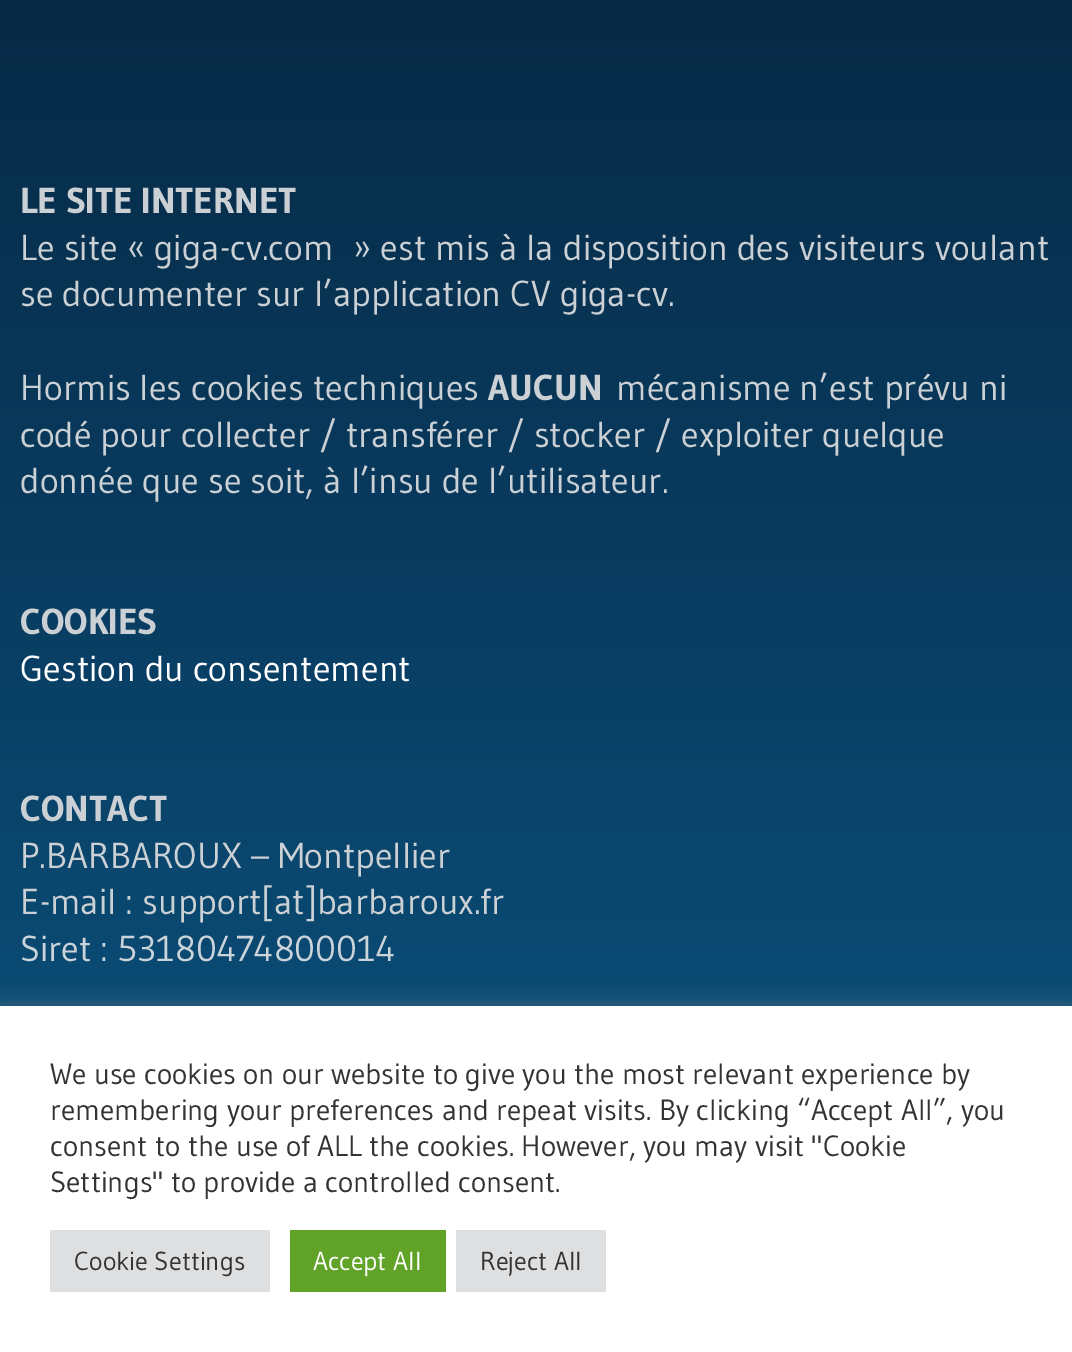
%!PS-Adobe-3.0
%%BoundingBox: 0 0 1072 1352
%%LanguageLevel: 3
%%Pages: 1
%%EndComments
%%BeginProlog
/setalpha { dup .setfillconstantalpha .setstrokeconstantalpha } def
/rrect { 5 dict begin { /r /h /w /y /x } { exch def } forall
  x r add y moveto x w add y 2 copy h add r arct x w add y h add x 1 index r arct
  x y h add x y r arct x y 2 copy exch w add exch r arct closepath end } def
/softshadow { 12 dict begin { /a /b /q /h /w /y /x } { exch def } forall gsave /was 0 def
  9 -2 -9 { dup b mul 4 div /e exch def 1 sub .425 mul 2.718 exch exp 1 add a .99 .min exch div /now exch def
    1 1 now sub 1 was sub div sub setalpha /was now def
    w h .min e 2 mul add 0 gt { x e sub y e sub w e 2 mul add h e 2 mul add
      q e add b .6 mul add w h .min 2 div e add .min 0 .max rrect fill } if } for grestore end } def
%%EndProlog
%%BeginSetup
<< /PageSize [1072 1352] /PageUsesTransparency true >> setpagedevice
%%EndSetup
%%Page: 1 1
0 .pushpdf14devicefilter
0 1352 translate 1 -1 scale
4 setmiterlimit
1 setgray
0 0 1072 1352 rectfill
gsave newpath 0 0 moveto 1072 0 lineto 1072 1006 lineto 0 1006 lineto closepath clip newpath
<< /ShadingType 2 /ColorSpace /DeviceRGB /Coords [536 -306 536 1352] /Extend [true true] /Function << /FunctionType 2 /Domain [0 1] /C0 [0.02 0.125 0.22] /C1 [0.051 0.337 0.518] /N 1 >> >> shfill grestore
0.675 0.671 0.671 setrgbcolor
0 1004 1072 346 0 10 0.3 softshadow
1 setgray
0 1006 1072 346 rectfill
0.871 0.875 0.878 setrgbcolor
50 1230 220 62 rectfill
0.38 0.635 0.161 setrgbcolor
290 1230 156 62 rectfill
0.871 0.875 0.878 setrgbcolor
456 1230 150 62 rectfill
/Gudea-Bold [36 0 0 -36 0 0] selectfont
0.792 0.816 0.831 setrgbcolor
20 213 moveto (LE SITE INTERNET) show
/Gudea-Regular [36 0 0 -36 0 0] selectfont
20 260 moveto (Le site « giga-cv.com) show
353 260 moveto (» est mis à la disposition des visiteurs voulant) show
20 306 moveto (se documenter sur l’application CV giga-cv.) show
20 400 moveto (Hormis les cookies techniques) show
/Gudea-Bold [36 0 0 -36 0 0] selectfont
488 400 moveto (AUCUN) show
/Gudea-Regular [36 0 0 -36 0 0] selectfont
616 400 moveto (mécanisme n’est prévu ni) show
20 447 moveto (codé pour collecter / transférer / stocker / exploiter quelque) show
20 493 moveto (donnée que se soit, à l’insu de l’utilisateur.) show
/Gudea-Bold [36 0 0 -36 0 0] selectfont
20 634 moveto (COOKIES) show
/Gudea-Regular [36 0 0 -36 0 0] selectfont
1 setgray
20 681 moveto (Gestion du consentement) show
/Gudea-Bold [36 0 0 -36 0 0] selectfont
0.792 0.816 0.831 setrgbcolor
20 821 moveto (CONTACT) show
/Gudea-Regular [36 0 0 -36 0 0] selectfont
20 868 moveto (P.BARBAROUX – Montpellier) show
20 914 moveto (E-mail : support[at]barbaroux.fr) show
0.792 0.831 0.855 setrgbcolor
20 961 moveto (Siret : 53180474800014) show
/Gudea-Regular [29.3 0 0 -29.3 0 0] selectfont
0.2 setgray
50 1084 moveto (We use cookies on our website to give you the most relevant experience by) show
50 1120 moveto (remembering your preferences and repeat visits. By clicking “Accept All”, you) show
50 1156 moveto (consent to the use of ALL the cookies. However, you may visit "Cookie) show
50 1192 moveto (Settings" to provide a controlled consent.) show
/Gudea-Regular [26 0 0 -26 0 0] selectfont
74 1270 moveto (Cookie Settings) show
1 setgray
313 1270 moveto (Accept All) show
0.2 setgray
480 1270 moveto (Reject All) show
.poppdf14devicefilter showpage
%%EOF
